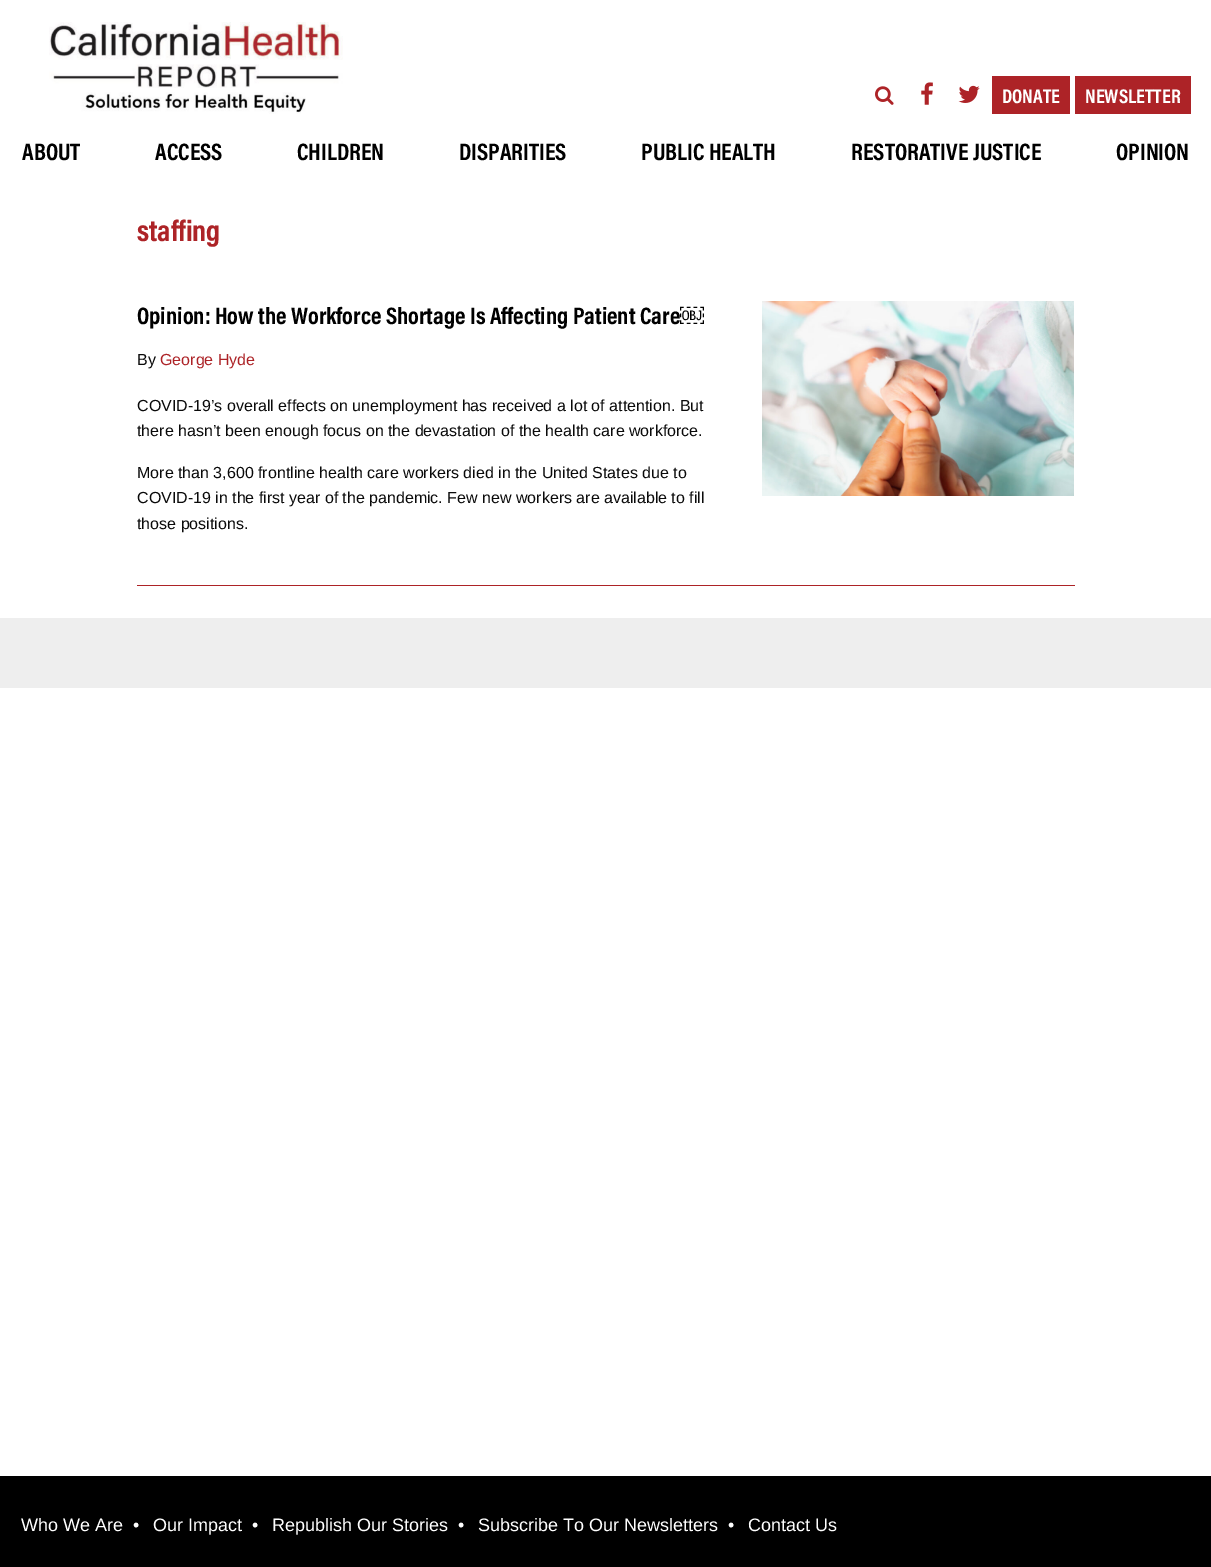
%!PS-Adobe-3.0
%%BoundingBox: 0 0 1211 1567
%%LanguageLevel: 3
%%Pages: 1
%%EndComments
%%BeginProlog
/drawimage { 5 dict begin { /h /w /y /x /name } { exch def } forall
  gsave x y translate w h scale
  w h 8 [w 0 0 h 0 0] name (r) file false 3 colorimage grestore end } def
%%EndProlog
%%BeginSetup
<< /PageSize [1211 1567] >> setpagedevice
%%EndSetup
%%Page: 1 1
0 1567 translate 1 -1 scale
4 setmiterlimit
1 setgray
0 0 1211 1567 rectfill
(images/1.raw) 49 22 294 92 drawimage
(images/2.raw) 875 86 19 19 drawimage
(images/3.raw) 921 82 12 23 drawimage
(images/4.raw) 958 85 22 18 drawimage
0.678 0.137 0.153 setrgbcolor
992 76 78 38 rectfill
1075 76 116 38 rectfill
(images/5.raw) 762 301 312 195 drawimage
137 585 938 1 rectfill
0.933 setgray
0 618 1211 70 rectfill
0 setgray
0 1476 1211 91 rectfill
/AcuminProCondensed-Bold [20 0 0 -20 0 0] selectfont
1 setgray
1002 103 moveto (DONATE) show
1085 103 moveto (NEWSLETTER) show
/AcuminProCondensed-Bold [24 0 0 -24 0 0] selectfont
0 setgray
22 160 moveto (ABOUT) show
155 160 moveto (ACCESS) show
297 160 moveto (CHILDREN) show
459 160 moveto (DISPARITIES) show
641 160 moveto (PUBLIC HEALTH) show
851 160 moveto (RESTORATIVE JUSTICE) show
1116 160 moveto (OPINION) show
/AcuminProCondensed-Bold [30 0 0 -30 0 0] selectfont
0.678 0.137 0.153 setrgbcolor
137 241 moveto (staffing) show
/AcuminProCondensed-Bold [24 0 0 -24 0 0] selectfont
0 setgray
137 324 moveto (Opinion: How the Workforce Shortage Is Affecting Patient Care) show
/LiberationSans-Bold [24 0 0 -24 0 0] selectfont
680 324 moveto (￼) show
/LiberationSans-Regular [16 0 0 -16 0 0] selectfont
0.039 setgray
137 365 moveto (By) show
0.678 0.137 0.153 setrgbcolor
160 365 moveto (George Hyde) show
0.039 setgray
137 411 moveto (COVID-19’s overall effects on unemployment has received a lot of attention. But) show
137 436 moveto (there hasn’t been enough focus on the devastation of the health care workforce.) show
137 478 moveto (More than 3,600 frontline health care workers died in the United States due to) show
137 503 moveto (COVID-19 in the first year of the pandemic. Few new workers are available to fill) show
137 529 moveto (those positions.) show
/LiberationSans-Regular [18 0 0 -18 0 0] selectfont
1 setgray
21 1531 moveto (Who We Are) show
133 1531 moveto (•) show
153 1531 moveto (Our Impact) show
252 1531 moveto (•) show
272 1531 moveto (Republish Our Stories) show
458 1531 moveto (•) show
478 1531 moveto (Subscribe To Our Newsletters) show
728 1531 moveto (•) show
748 1531 moveto (Contact Us) show
showpage
%%EOF
